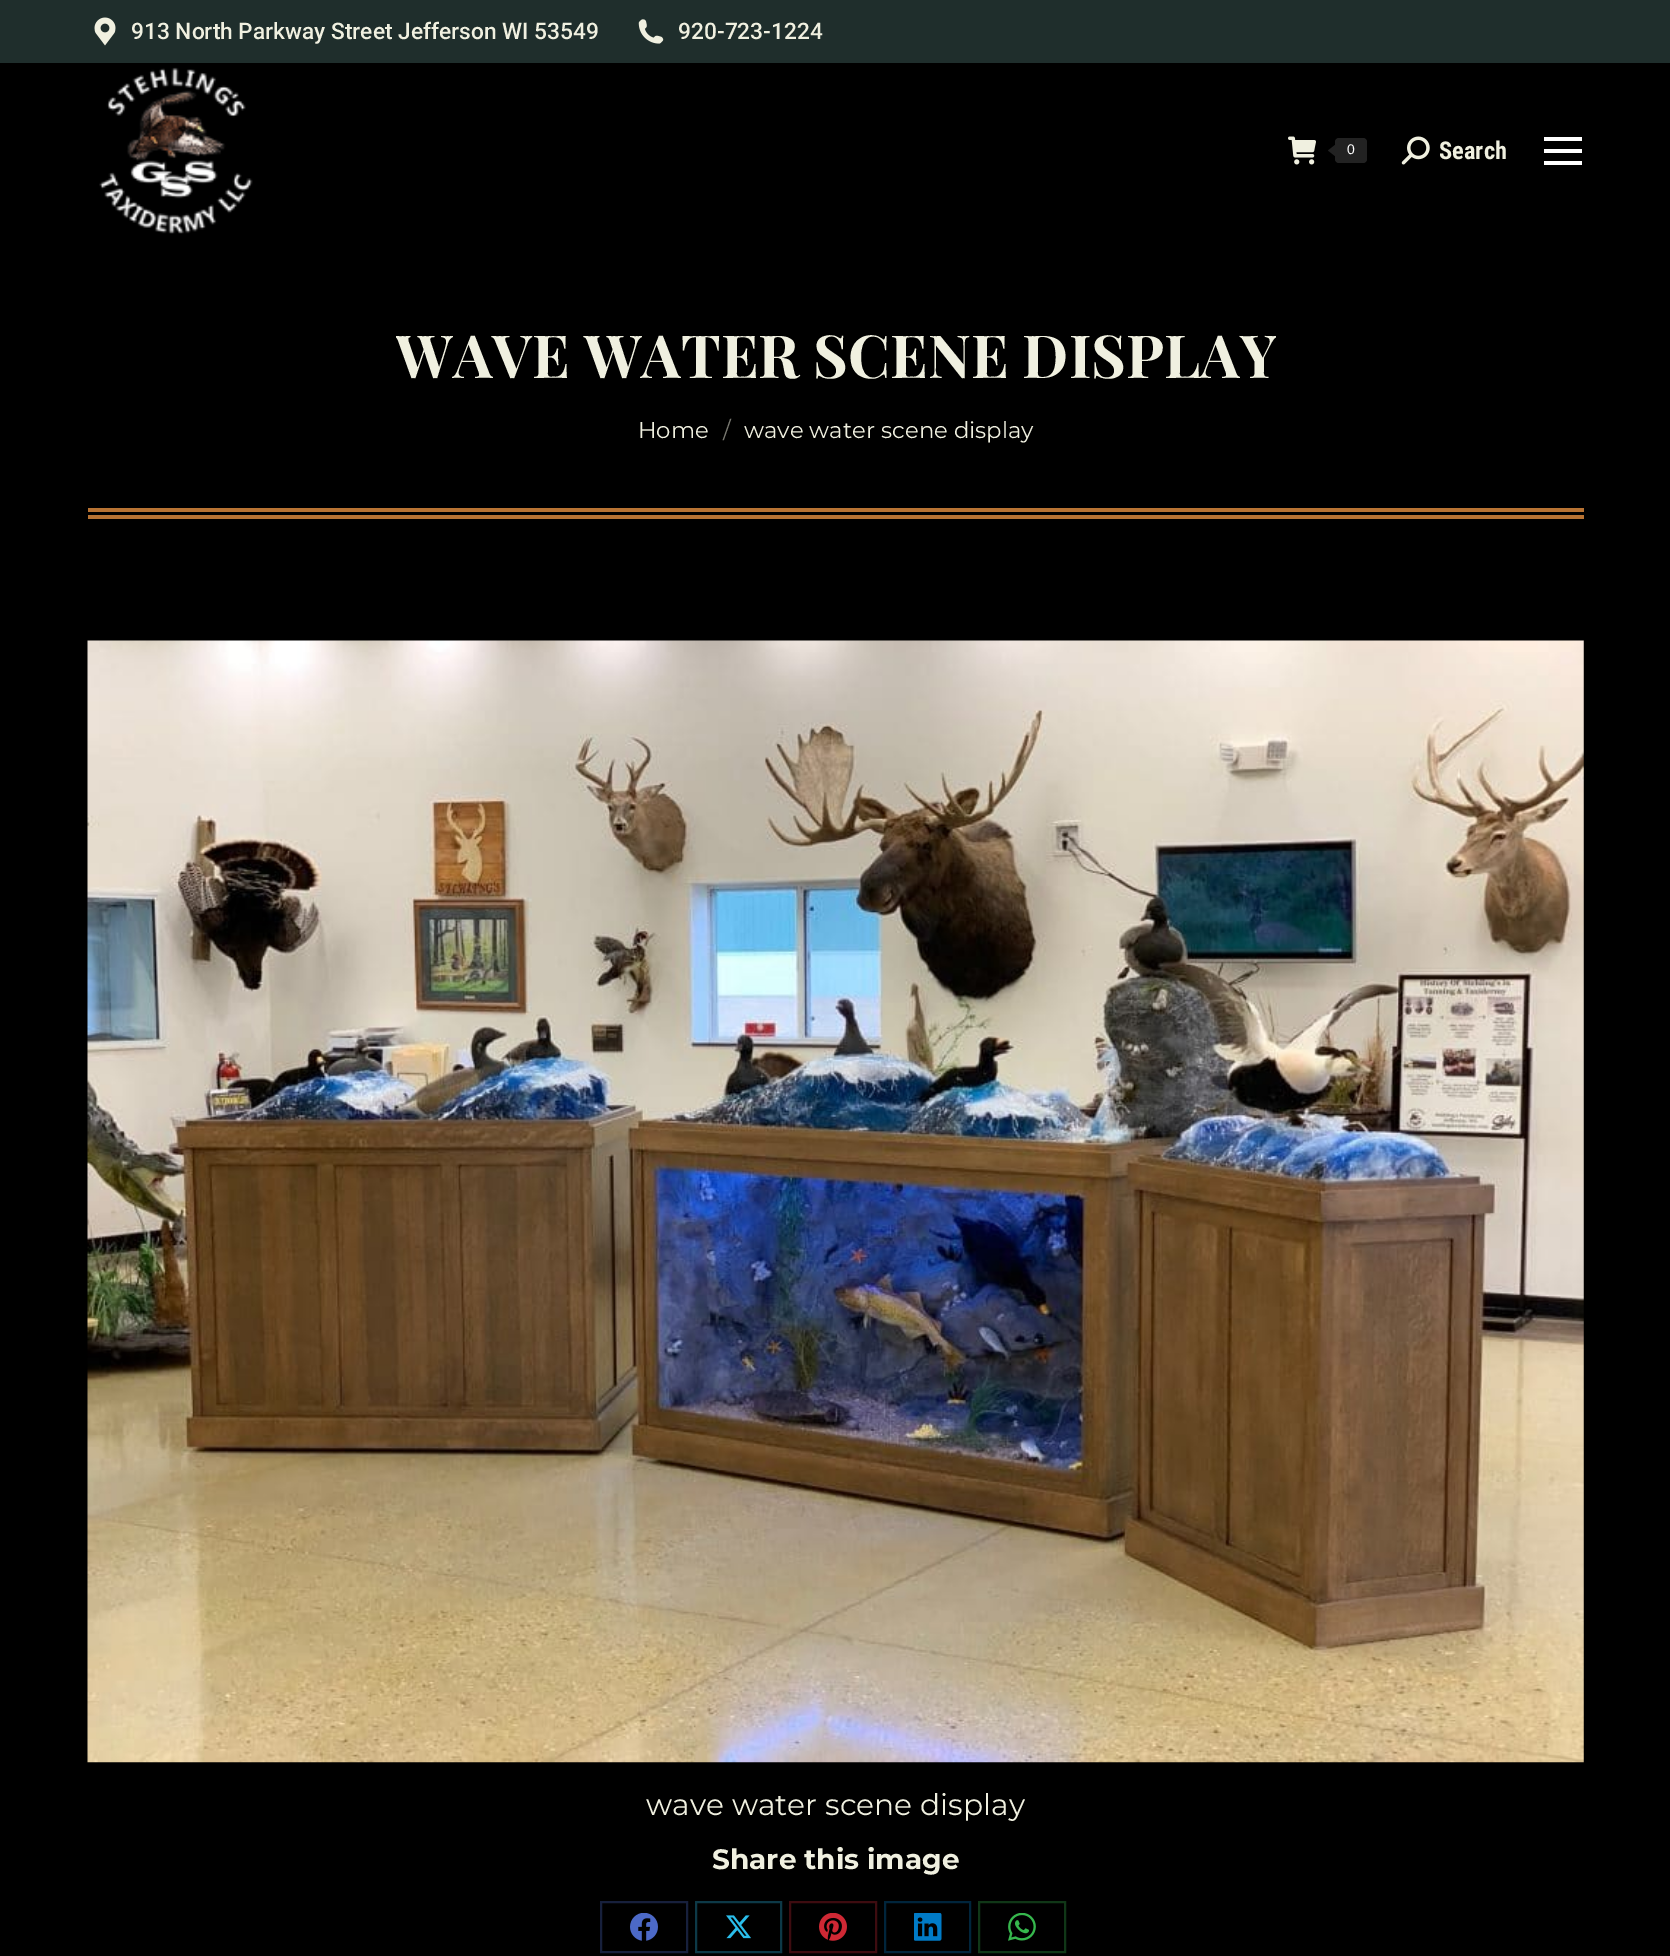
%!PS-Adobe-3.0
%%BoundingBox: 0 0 1670 1956
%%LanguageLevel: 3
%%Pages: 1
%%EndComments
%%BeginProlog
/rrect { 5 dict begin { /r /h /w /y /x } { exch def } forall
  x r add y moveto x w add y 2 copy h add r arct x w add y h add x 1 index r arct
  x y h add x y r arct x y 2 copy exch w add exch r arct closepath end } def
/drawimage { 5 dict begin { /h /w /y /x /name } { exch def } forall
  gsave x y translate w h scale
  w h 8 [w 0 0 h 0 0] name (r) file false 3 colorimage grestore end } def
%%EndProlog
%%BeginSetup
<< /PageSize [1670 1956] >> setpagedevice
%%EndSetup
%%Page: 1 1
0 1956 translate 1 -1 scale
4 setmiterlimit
0 setgray
0 0 1670 1956 rectfill
0.122 0.18 0.173 setrgbcolor
0 0 1670 63 rectfill
(images/1.raw) 94 17 22 29 drawimage
(images/2.raw) 638 19 26 25 drawimage
(images/3.raw) 99 67 154 167 drawimage
(images/4.raw) 1288 136 28 29 drawimage
0.133 setgray
1335 138 32 25 4 rrect fill
newpath 1335 145 moveto 1335 156 lineto 1328 150.5 lineto closepath fill
(images/5.raw) 1401 136 29 29 drawimage
1 setgray
1544 137 38 4 rectfill
1544 149 38 4 rectfill
1544 161 38 4 rectfill
0.722 0.451 0.2 setrgbcolor
88 508 1496 4 rectfill
88 515 1496 4 rectfill
(images/6.raw) 87 640 1497 1123 drawimage
0.09 0.125 0.235 setrgbcolor
2 setlinewidth
601 1902 86 50 rectstroke
(images/7.raw) 630 1913 28 28 drawimage
0.051 0.224 0.278 setrgbcolor
696 1902 85 50 rectstroke
(images/8.raw) 726 1915 25 24 drawimage
0.243 0.047 0.063 setrgbcolor
790 1902 86 50 rectstroke
(images/9.raw) 819 1913 28 28 drawimage
0 0.145 0.235 setrgbcolor
885 1902 85 50 rectstroke
(images/10.raw) 914 1913 28 28 drawimage
0.063 0.216 0.09 setrgbcolor
979 1902 86 50 rectstroke
(images/11.raw) 1008 1913 28 28 drawimage
/Roboto-Medium [22.75 0 0 -22.75 0 0] selectfont
0.941 0.941 0.878 setrgbcolor
131 39 moveto (913 North Parkway Street Jefferson WI 53549) show
678 39 moveto (920-723-1224) show
/LiberationSans-Regular [14 0 0 -14 0 0] selectfont
1 setgray
1347 154 moveto (0) show
/RobotoCondensed-Bold [24.5 0 0 -24.5 0 0] selectfont
0.941 0.941 0.878 setrgbcolor
1439 159 moveto (Search) show
gsave
396 315 880 77 rectclip
/PlayfairDisplay-Bold [59.5 0 0 -59.5 0 0] selectfont
395 378 moveto (WAVE WATER SCENE DISPLAY) show
grestore
/Montserrat-Regular [22.75 0 0 -22.75 0 0] selectfont
638 438 moveto (Home) show
0.471 0.471 0.439 setrgbcolor
723 438 moveto (/) show
0.941 0.941 0.878 setrgbcolor
744 438 moveto (wave water scene display) show
/Montserrat-Regular [29.75 0 0 -29.75 0 0] selectfont
646 1815 moveto (wave water scene display) show
/Montserrat-Bold [28 0 0 -28 0 0] selectfont
712 1869 moveto (Share this image) show
showpage
%%EOF
